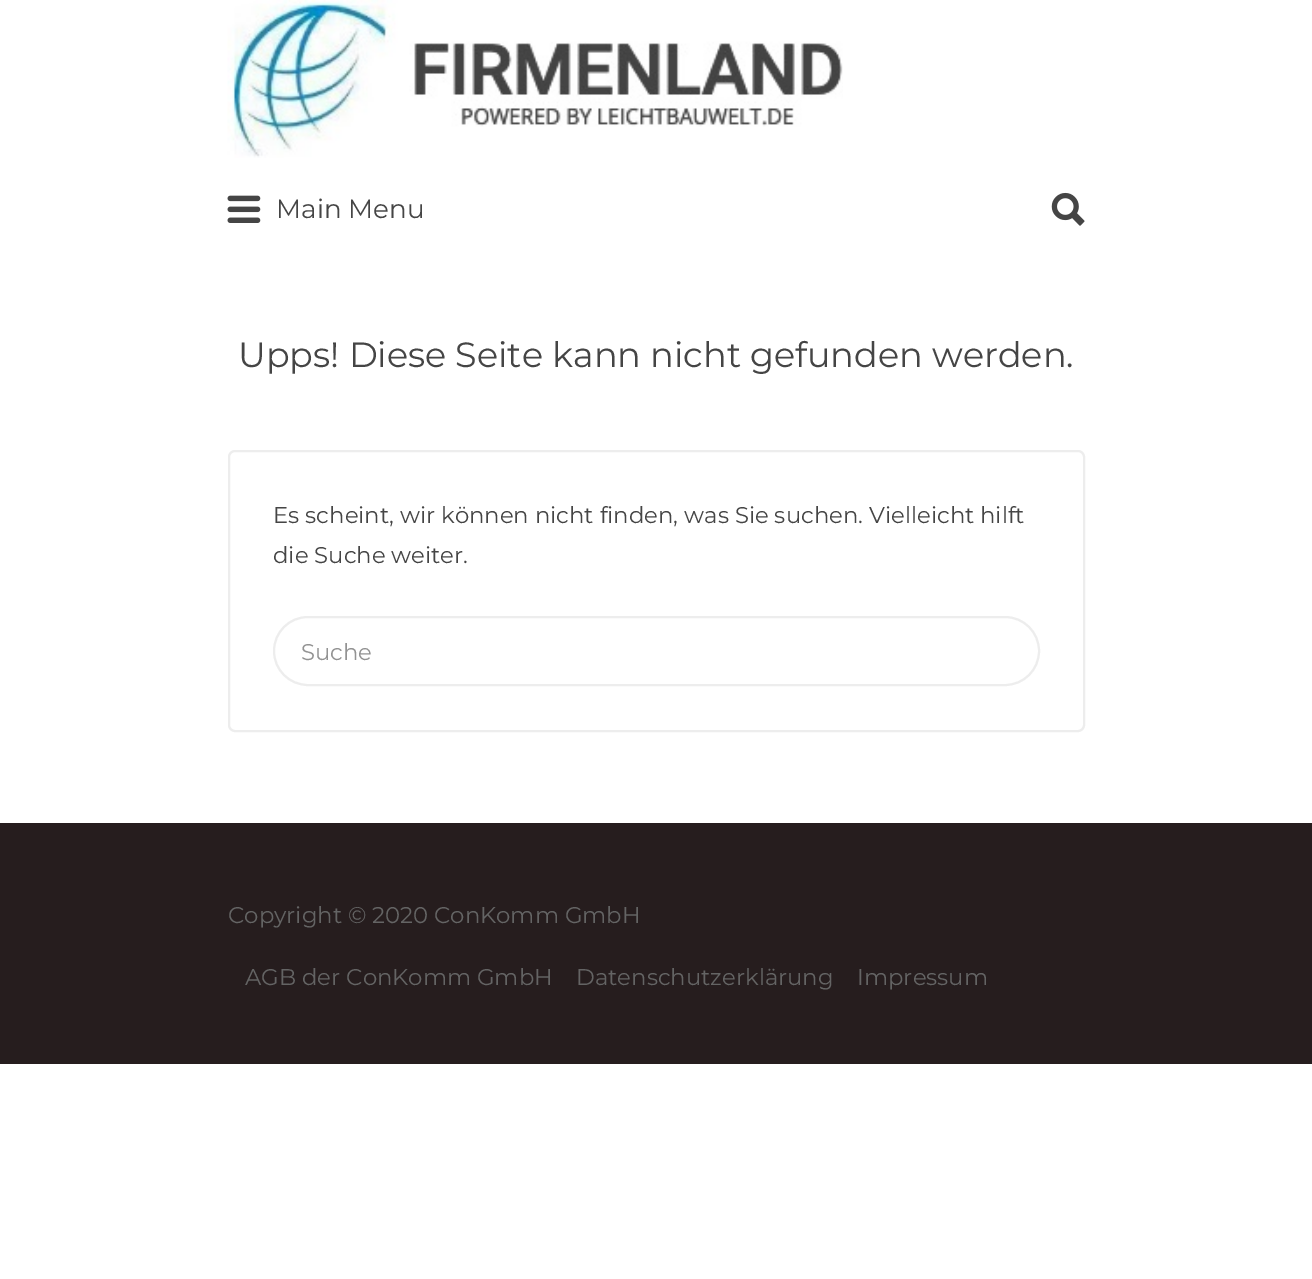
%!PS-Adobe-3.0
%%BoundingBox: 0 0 1312 1279
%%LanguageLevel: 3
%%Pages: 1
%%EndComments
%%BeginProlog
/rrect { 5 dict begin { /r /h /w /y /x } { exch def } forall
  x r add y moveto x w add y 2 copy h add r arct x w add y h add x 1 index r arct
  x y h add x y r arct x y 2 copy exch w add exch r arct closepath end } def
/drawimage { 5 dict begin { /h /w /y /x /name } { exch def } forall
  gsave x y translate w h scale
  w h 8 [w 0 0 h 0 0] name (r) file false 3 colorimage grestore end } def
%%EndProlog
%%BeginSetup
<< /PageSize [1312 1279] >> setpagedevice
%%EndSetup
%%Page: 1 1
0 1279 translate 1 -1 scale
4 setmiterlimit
1 setgray
0 0 1312 1279 rectfill
(images/1.raw) 227 0 616 158 drawimage
(images/2.raw) 227 195 34 28 drawimage
(images/3.raw) 1051 192 34 34 drawimage
0.929 setgray
2 setlinewidth
229 451 855 280 6 rrect stroke
274 617 765 68 34 rrect stroke
0.149 0.114 0.118 setrgbcolor
0 823 1312 241 rectfill
/Montserrat-Regular [26.25 0 0 -26.25 0 0] selectfont
0.271 setgray
276 218 moveto (Main Menu) show
/Montserrat-Regular [35 0 0 -35 0 0] selectfont
238 367 moveto (Upps! Diese Seite kann nicht gefunden werden.) show
/Montserrat-Regular [22.75 0 0 -22.75 0 0] selectfont
273 523 moveto (Es scheint, wir können nicht finden, was Sie suchen. Vielleicht hilft) show
273 563 moveto (die Suche weiter.) show
0.576 setgray
301 660 moveto (Suche) show
0.392 setgray
228 923 moveto (Copyright © 2020 ConKomm GmbH) show
245 985 moveto (AGB der ConKomm GmbH) show
576 985 moveto (Datenschutzerklärung) show
857 985 moveto (Impressum) show
showpage
%%EOF
